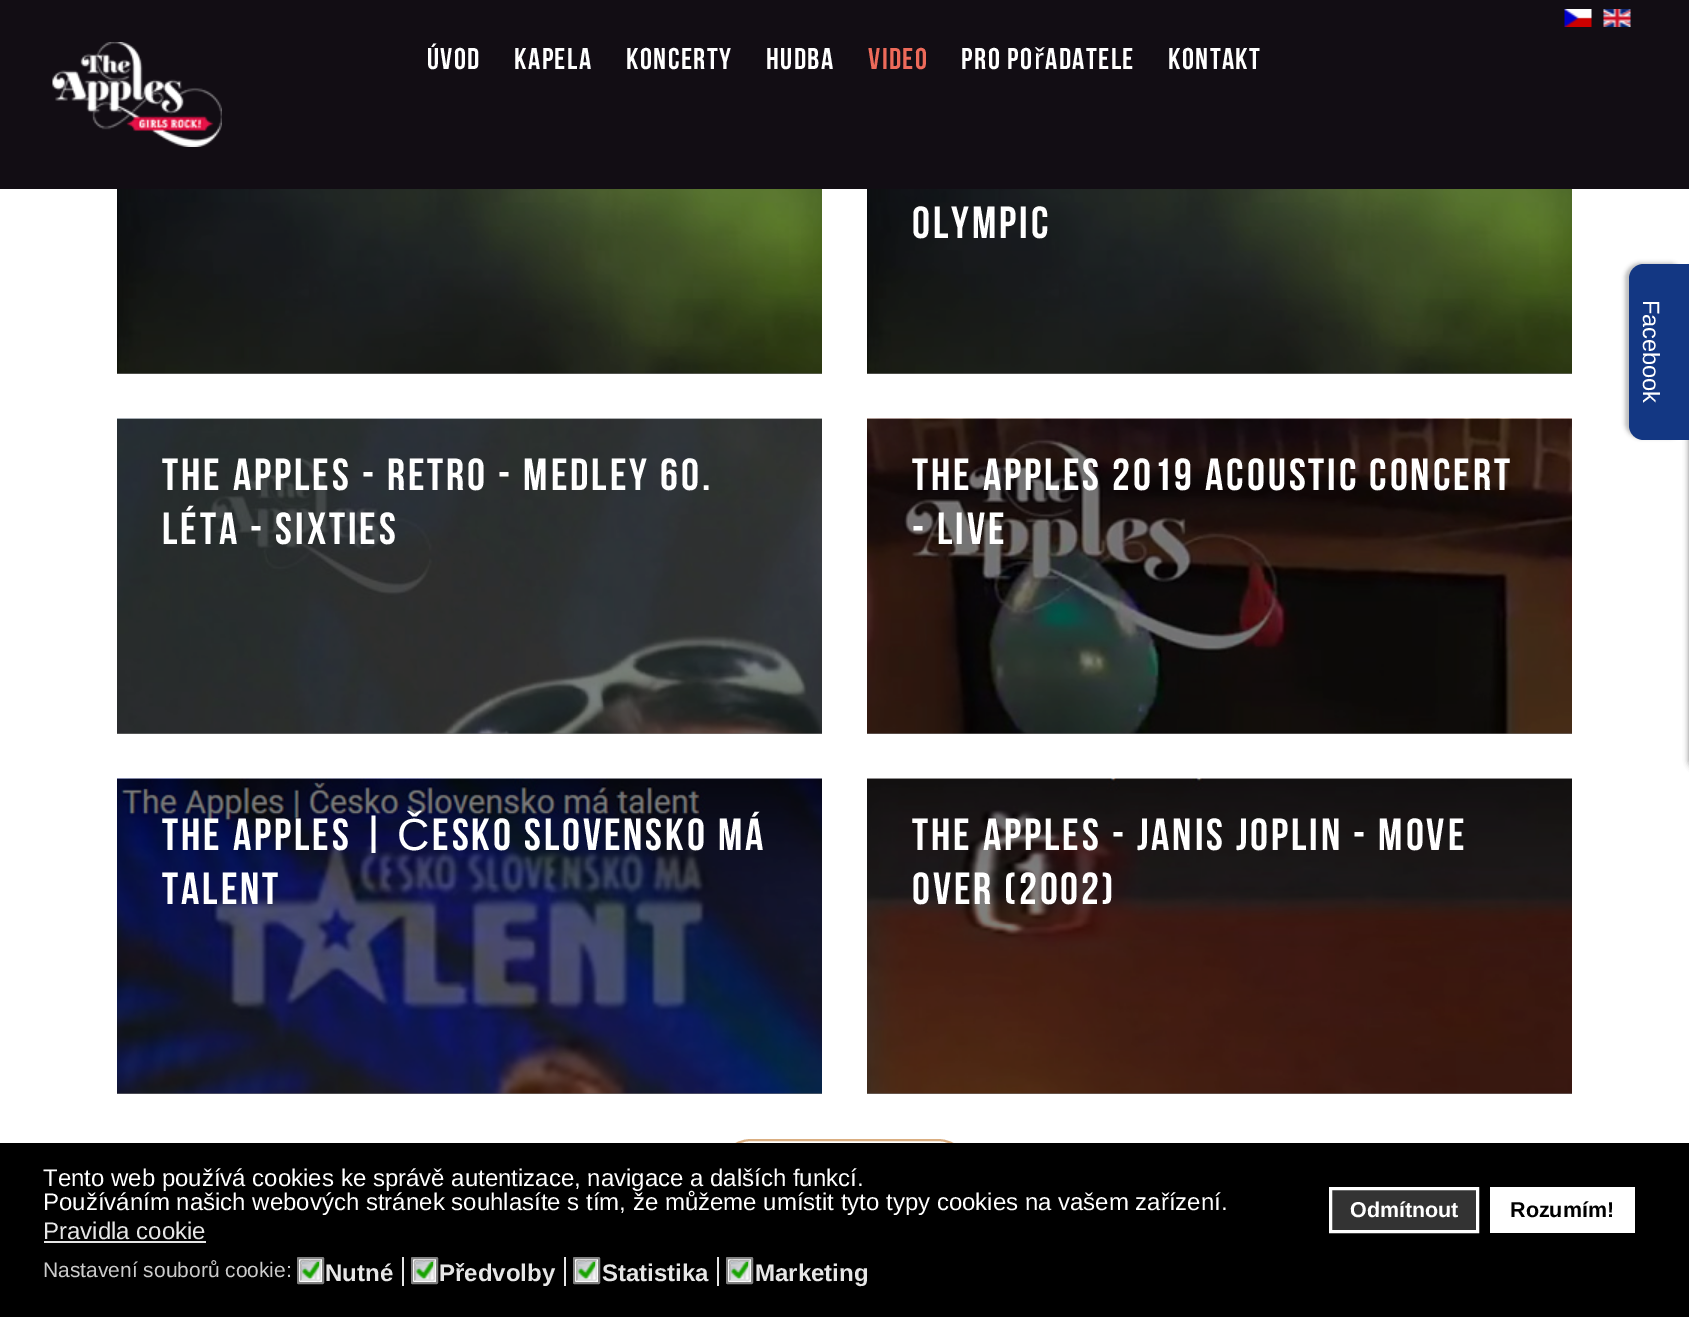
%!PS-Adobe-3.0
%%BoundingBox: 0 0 1689 1317
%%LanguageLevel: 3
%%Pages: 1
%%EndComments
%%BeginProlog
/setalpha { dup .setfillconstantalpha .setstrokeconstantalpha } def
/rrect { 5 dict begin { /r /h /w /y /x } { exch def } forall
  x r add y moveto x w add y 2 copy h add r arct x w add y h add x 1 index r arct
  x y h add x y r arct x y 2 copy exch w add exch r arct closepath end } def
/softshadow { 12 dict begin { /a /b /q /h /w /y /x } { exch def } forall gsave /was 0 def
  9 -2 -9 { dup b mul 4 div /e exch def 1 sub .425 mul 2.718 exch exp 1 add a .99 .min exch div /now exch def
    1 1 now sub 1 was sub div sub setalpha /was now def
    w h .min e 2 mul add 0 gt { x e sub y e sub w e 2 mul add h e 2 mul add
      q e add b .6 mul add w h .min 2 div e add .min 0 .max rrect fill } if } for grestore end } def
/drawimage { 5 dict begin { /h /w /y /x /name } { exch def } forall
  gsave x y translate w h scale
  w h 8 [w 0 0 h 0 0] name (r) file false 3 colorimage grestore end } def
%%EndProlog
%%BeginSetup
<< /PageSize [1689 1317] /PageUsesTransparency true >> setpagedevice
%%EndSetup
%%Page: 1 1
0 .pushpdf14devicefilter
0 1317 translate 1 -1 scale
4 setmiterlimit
1 setgray
0 0 1689 1317 rectfill
0.502 setgray
117 373 705 1 rectfill
867 373 705 1 rectfill
117 733 705 1 rectfill
867 733 705 1 rectfill
117 1093 705 1 rectfill
867 1093 705 1 rectfill
0.071 0.051 0.078 setrgbcolor
0 0 1689 189 rectfill
(images/1.raw) 1564 9 28 18 drawimage
(images/2.raw) 1603 9 28 18 drawimage
(images/3.raw) 52 42 170 105 drawimage
(images/4.raw) 117 189 705 185 drawimage
(images/4.raw) 867 189 705 185 drawimage
(images/5.raw) 117 418 705 316 drawimage
(images/6.raw) 867 418 705 316 drawimage
(images/7.raw) 117 778 705 316 drawimage
(images/8.raw) 867 778 705 316 drawimage
0.855 0.682 0.506 setrgbcolor
2 setlinewidth
718 1140 253 67 33.5 rrect stroke
0 setgray
1689 264 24 506 15 3 0.5 softshadow
1625 263 60 175 15 2 0.25 softshadow
0.075 0.216 0.514 setrgbcolor
newpath 1644 264 moveto 1689 264 lineto 1689 440 lineto 1644 440 lineto 1635.5 440 1629 433.5 1629 425 curveto 1629 279 lineto 1629 270.5 1635.5 264 1644 264 curveto closepath fill
0 setgray
0 1143 1689 174 rectfill
0.902 setgray
44 1241 162 2 rectfill
0.2 setgray
newpath 1330.5 1188.5 moveto 1477.5 1188.5 lineto 1477.5 1231.5 lineto 1330.5 1231.5 lineto closepath gsave fill grestore
1 setgray
3 setlinewidth
stroke
1490 1187 145 46 rectfill
298 1258 25 25 0.5 rrect gsave fill grestore
0.502 setgray
2 setlinewidth
stroke
(images/9.raw) 299 1260 23 21 drawimage
0.863 0.867 0.871 setrgbcolor
1.5 setlinewidth
newpath 320 1261 moveto 320.5 1261.5 320 1269 320 1270.5 curveto 320 1283 323 1280 310.5 1280 curveto 309 1280 301.5 1280.5 301 1280 curveto stroke
0.702 setgray
newpath 301 1280 moveto 300.5 1279.5 301 1272 301 1270.5 curveto 301 1258 298 1261 310.5 1261 curveto 312 1261 319.5 1260.5 320 1261 curveto stroke
0.902 setgray
402 1257 2 29 rectfill
1 setgray
412 1258 25 25 0.5 rrect gsave fill grestore
0.502 setgray
2 setlinewidth
stroke
(images/9.raw) 413 1260 23 21 drawimage
0.863 0.867 0.871 setrgbcolor
1.5 setlinewidth
newpath 434 1261 moveto 434.5 1261.5 434 1269 434 1270.5 curveto 434 1283 437 1280 424.5 1280 curveto 423 1280 415.5 1280.5 415 1280 curveto stroke
0.702 setgray
newpath 415 1280 moveto 414.5 1279.5 415 1272 415 1270.5 curveto 415 1258 412 1261 424.5 1261 curveto 426 1261 433.5 1260.5 434 1261 curveto stroke
0.902 setgray
564 1257 2 29 rectfill
1 setgray
574 1258 25 25 0.5 rrect gsave fill grestore
0.502 setgray
2 setlinewidth
stroke
(images/9.raw) 575 1260 23 21 drawimage
0.863 0.867 0.871 setrgbcolor
1.5 setlinewidth
newpath 596 1261 moveto 596.5 1261.5 596 1269 596 1270.5 curveto 596 1283 599 1280 586.5 1280 curveto 585 1280 577.5 1280.5 577 1280 curveto stroke
0.702 setgray
newpath 577 1280 moveto 576.5 1279.5 577 1272 577 1270.5 curveto 577 1258 574 1261 586.5 1261 curveto 588 1261 595.5 1260.5 596 1261 curveto stroke
0.902 setgray
717 1257 2 29 rectfill
1 setgray
727 1258 25 25 0.5 rrect gsave fill grestore
0.502 setgray
2 setlinewidth
stroke
(images/9.raw) 728 1260 23 21 drawimage
0.863 0.867 0.871 setrgbcolor
1.5 setlinewidth
newpath 749 1261 moveto 749.5 1261.5 749 1269 749 1270.5 curveto 749 1283 752 1280 739.5 1280 curveto 738 1280 730.5 1280.5 730 1280 curveto stroke
0.702 setgray
newpath 730 1280 moveto 729.5 1279.5 730 1272 730 1270.5 curveto 730 1258 727 1261 739.5 1261 curveto 741 1261 748.5 1260.5 749 1261 curveto stroke
/BebasNeue-Bold [30 0 0 -30 0 0] selectfont
1 setgray
427 69 moveto 1.5 0 (Úvod) ashow
514 69 moveto 1.5 0 (Kapela) ashow
626 69 moveto 1.5 0 (Koncerty) ashow
766 69 moveto 1.5 0 (Hudba) ashow
0.929 0.416 0.353 setrgbcolor
868 69 moveto 1.5 0 (Video) ashow
1 setgray
961 69 moveto 1.5 0 (Pro po) ashow
/LiberationSans-Regular [30 0 0 -30 0 0] selectfont
1034 69 moveto 1.5 0 (ř) ashow
/BebasNeue-Bold [30 0 0 -30 0 0] selectfont
1045 69 moveto 1.5 0 (adatele) ashow
1168 69 moveto 1.5 0 (Kontakt) ashow
/BebasNeue-Bold [45 0 0 -45 0 0] selectfont
912 238 moveto 3 0 (Olympic) ashow
162 490 moveto 3 0 (The Apples - Retro - Medley 60.) ashow
162 544 moveto 3 0 (léta - Sixties) ashow
912 490 moveto 3 0 (THE APPLES 2019 Acoustic Concert) ashow
912 544 moveto 3 0 (- Live) ashow
162 850 moveto 3 0 (The Apples |) ashow
/LiberationSans-Regular [45 0 0 -45 0 0] selectfont
397 850 moveto 3 0 (Č) ashow
/BebasNeue-Bold [45 0 0 -45 0 0] selectfont
432 850 moveto 3 0 (esko Slovensko má) ashow
162 904 moveto 3 0 (talent) ashow
912 850 moveto 3 0 (The Apples - Janis Joplin - Move) ashow
912 904 moveto 3 0 (Over \(2002\)) ashow
/LiberationSans-Regular [23.5 0 0 -23.5 0 0] selectfont
gsave 1643 300 translate 90 rotate 0 0 moveto (Facebook) show grestore
/LiberationSans-Regular [24 0 0 -24 0 0] selectfont
43 1186 moveto (Tento web používá cookies ke správě autentizace, navigace a dalších funkcí.) show
43 1210 moveto (Používáním našich webových stránek souhlasíte s tím, že můžeme umístit tyto typy cookies na vašem zařízení.) show
0.902 setgray
43 1239 moveto (Pravidla cookie) show
/LiberationSans-Bold [21.5 0 0 -21.5 0 0] selectfont
1 setgray
1350 1217 moveto (Odmítnout) show
0 setgray
1510 1217 moveto (Rozumím!) show
/LiberationSans-Regular [21 0 0 -21 0 0] selectfont
0.8 setgray
43 1277 moveto (Nastavení souborů cookie:) show
/LiberationSans-Bold [24 0 0 -24 0 0] selectfont
0.902 setgray
325 1281 moveto (Nutné) show
439 1281 moveto (Předvolby) show
602 1281 moveto (Statistika) show
755 1281 moveto (Marketing) show
.poppdf14devicefilter showpage
%%EOF
